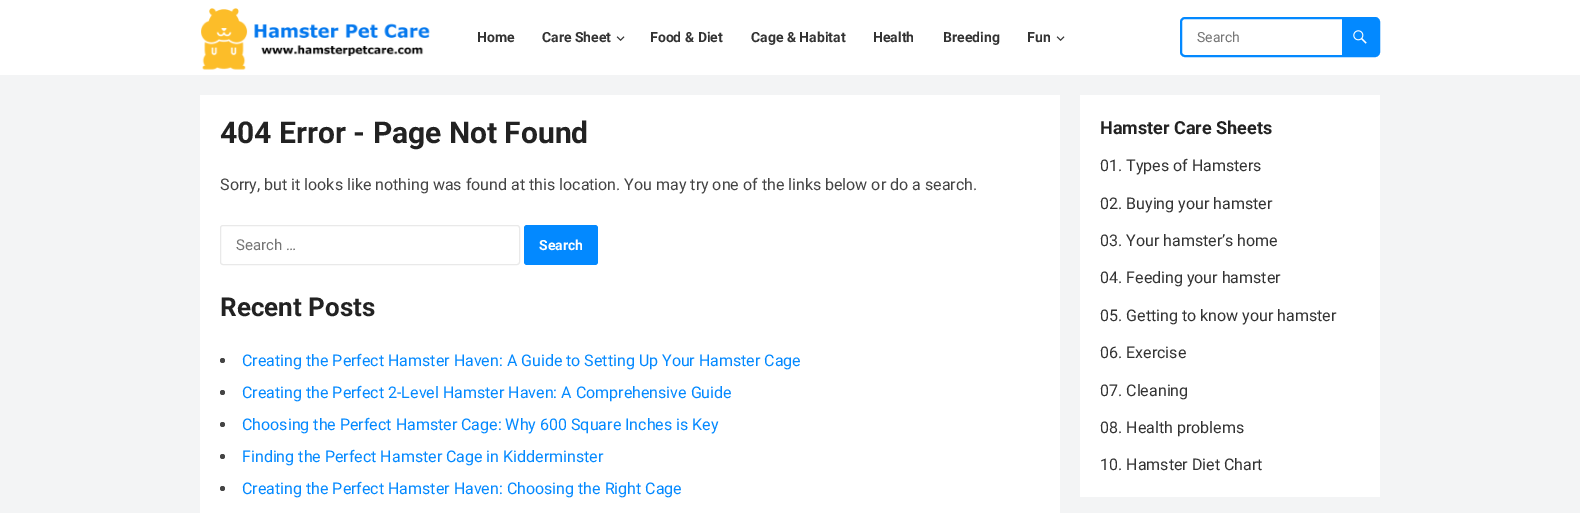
%!PS-Adobe-3.0
%%BoundingBox: 0 0 1580 513
%%LanguageLevel: 3
%%Pages: 1
%%EndComments
%%BeginProlog
/rrect { 5 dict begin { /r /h /w /y /x } { exch def } forall
  x r add y moveto x w add y 2 copy h add r arct x w add y h add x 1 index r arct
  x y h add x y r arct x y 2 copy exch w add exch r arct closepath end } def
/drawimage { 5 dict begin { /h /w /y /x /name } { exch def } forall
  gsave x y translate w h scale
  w h 8 [w 0 0 h 0 0] name (r) file false 3 colorimage grestore end } def
%%EndProlog
%%BeginSetup
<< /PageSize [1580 513] >> setpagedevice
%%EndSetup
%%Page: 1 1
0 513 translate 1 -1 scale
4 setmiterlimit
0.953 0.957 0.961 setrgbcolor
0 0 1580 513 rectfill
1 setgray
0 0 1580 75 rectfill
(images/1.raw) 201 8 229 62 drawimage
(images/2.raw) 616 36 9 5 drawimage
(images/2.raw) 1056 36 9 5 drawimage
0.012 0.537 1 setrgbcolor
2 setlinewidth
1181 18 198 38 4 rrect stroke
1342 19 36 36 rectfill
(images/3.raw) 1353 30 14 14 drawimage
1 setgray
200 95 860 418 rectfill
0.914 setgray
1 setlinewidth
220.5 225.5 299 39 2.5 rrect stroke
0.012 0.537 1 setrgbcolor
524 225 74 40 3 rrect fill
0.267 setgray
newpath 222.5 360.5 2.5 0 360 arc closepath fill
newpath 222.5 392.5 2.5 0 360 arc closepath fill
newpath 222.5 424.5 2.5 0 360 arc closepath fill
newpath 222.5 456.5 2.5 0 360 arc closepath fill
newpath 222.5 488.5 2.5 0 360 arc closepath fill
1 setgray
1080 95 300 402 rectfill
/Roboto-Bold [14 0 0 -14 0 0] selectfont
0.2 setgray
477 42 moveto (Home) show
542 42 moveto (Care Sheet) show
650 42 moveto (Food & Diet) show
751 42 moveto (Cage & Habitat) show
873 42 moveto (Health) show
943 42 moveto (Breeding) show
1027 42 moveto (Fun) show
/Roboto-Regular [14 0 0 -14 0 0] selectfont
0.459 setgray
1197 42 moveto (Search) show
/Roboto-Bold [30 0 0 -30 0 0] selectfont
0.133 setgray
220 143 moveto (404 Error - Page Not Found) show
/Roboto-Regular [16 0 0 -16 0 0] selectfont
0.267 setgray
220 190 moveto (Sorry, but it looks like nothing was found at this location. You may try one of the links below or do a search.) show
/Roboto-Regular [15 0 0 -15 0 0] selectfont
0.459 setgray
236 250 moveto (Search …) show
/Roboto-Bold [14 0 0 -14 0 0] selectfont
1 setgray
539 250 moveto (Search) show
/Roboto-Bold [26 0 0 -26 0 0] selectfont
0.133 setgray
220 316 moveto (Recent Posts) show
/Roboto-Regular [16 0 0 -16 0 0] selectfont
0.012 0.537 1 setrgbcolor
242 366 moveto (Creating the Perfect Hamster Haven: A Guide to Setting Up Your Hamster Cage) show
242 398 moveto (Creating the Perfect 2-Level Hamster Haven: A Comprehensive Guide) show
242 430 moveto (Choosing the Perfect Hamster Cage: Why 600 Square Inches is Key) show
242 462 moveto (Finding the Perfect Hamster Cage in Kidderminster) show
242 494 moveto (Creating the Perfect Hamster Haven: Choosing the Right Cage) show
/Roboto-Bold [18 0 0 -18 0 0] selectfont
0.133 setgray
1100 134 moveto (Hamster Care Sheets) show
/Roboto-Regular [16 0 0 -16 0 0] selectfont
0.2 setgray
1100 171 moveto (01. Types of Hamsters) show
1100 209 moveto (02. Buying your hamster) show
1100 246 moveto (03. Your hamster’s home) show
1100 283 moveto (04. Feeding your hamster) show
1100 321 moveto (05. Getting to know your hamster) show
1100 358 moveto (06. Exercise) show
1100 396 moveto (07. Cleaning) show
1100 433 moveto (08. Health problems) show
1100 470 moveto (10. Hamster Diet Chart) show
showpage
%%EOF
